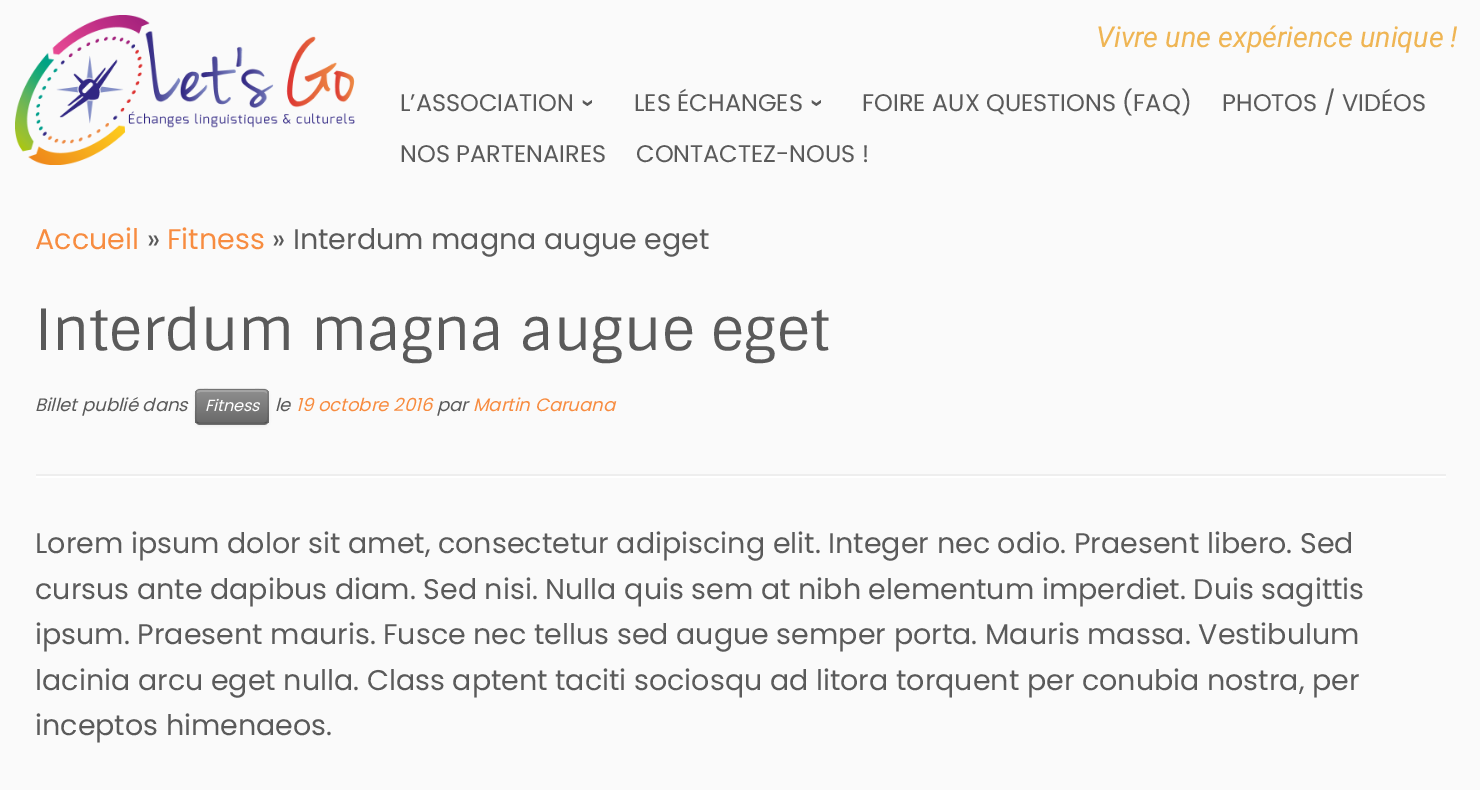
%!PS-Adobe-3.0
%%BoundingBox: 0 0 1480 790
%%LanguageLevel: 3
%%Pages: 1
%%EndComments
%%BeginProlog
/setalpha { dup .setfillconstantalpha .setstrokeconstantalpha } def
/rrect { 5 dict begin { /r /h /w /y /x } { exch def } forall
  x r add y moveto x w add y 2 copy h add r arct x w add y h add x 1 index r arct
  x y h add x y r arct x y 2 copy exch w add exch r arct closepath end } def
/softshadow { 12 dict begin { /a /b /q /h /w /y /x } { exch def } forall gsave /was 0 def
  9 -2 -9 { dup b mul 4 div /e exch def 1 sub .425 mul 2.718 exch exp 1 add a .99 .min exch div /now exch def
    1 1 now sub 1 was sub div sub setalpha /was now def
    w h .min e 2 mul add 0 gt { x e sub y e sub w e 2 mul add h e 2 mul add
      q e add b .6 mul add w h .min 2 div e add .min 0 .max rrect fill } if } for grestore end } def
/drawimage { 5 dict begin { /h /w /y /x /name } { exch def } forall
  gsave x y translate w h scale
  w h 8 [w 0 0 h 0 0] name (r) file false 3 colorimage grestore end } def
%%EndProlog
%%BeginSetup
<< /PageSize [1480 790] /PageUsesTransparency true >> setpagedevice
%%EndSetup
%%Page: 1 1
0 .pushpdf14devicefilter
0 790 translate 1 -1 scale
4 setmiterlimit
0.98 setgray
0 0 1480 790 rectfill
(images/1.raw) 15 15 340 150 drawimage
0 setgray
195 390 74 36 5 1.5 0.05 softshadow
0.502 setgray
195 389 74 36 5 rrect fill
gsave
195 389 74 36 5 rrect clip newpath
gsave newpath 195 390 moveto 269 390 lineto 269 423 lineto 195 423 lineto closepath clip newpath
<< /ShadingType 2 /ColorSpace /DeviceRGB /Coords [232 390 232 423] /Extend [true true] /Function << /FunctionType 2 /Domain [0 1] /C0 [0.561 0.561 0.561] /C1 [0.412 0.412 0.412] /N 1 >> >> shfill grestore
grestore
0.643 setgray
newpath 200 392 moveto 264 392 lineto 266 392 267 393 267 394 curveto 267 393 lineto 267 391 266 390 264 390 curveto 200 390 lineto 198 390 197 391 197 393 curveto closepath fill
0.25 setalpha
0 setgray
1.5 setlinewidth
newpath 266.5 422.5 moveto 264.5 423.5 lineto 199 423.5 lineto 197 422.5 lineto stroke
0.1 setalpha
newpath 197 422.5 moveto 194.5 420.5 196 409.5 196 406.5 curveto 196 388 192.5 389 210 389 curveto 253 389 lineto 271 389 268 388 268 406.5 curveto 268 409.5 269 420.5 266.5 422.5 curveto stroke
1 setalpha
0.933 setgray
36 474 1410 2 rectfill
1 setgray
36 476 1410 2 rectfill
/Roboto-Italic [28.75 0 0 -28.75 0 0] selectfont
0.937 0.71 0.329 setrgbcolor
1096 47 moveto (Vivre une expérience unique !) show
/Poppins-Regular [24 0 0 -24 0 0] selectfont
0.353 setgray
400 111 moveto (L’ASSOCIATION) show
/LiberationSans-Bold [24 0 0 -24 0 0] selectfont
gsave 581 99 translate 90 rotate 0 0 moveto (›) show grestore
/Poppins-Regular [24 0 0 -24 0 0] selectfont
634 111 moveto (LES ÉCHANGES) show
/LiberationSans-Bold [24 0 0 -24 0 0] selectfont
gsave 810 99 translate 90 rotate 0 0 moveto (›) show grestore
/Poppins-Regular [24 0 0 -24 0 0] selectfont
862 111 moveto (FOIRE AUX QUESTIONS \(FAQ\)) show
1222 111 moveto (PHOTOS / VIDÉOS) show
400 162 moveto (NOS PARTENAIRES) show
636 162 moveto (CONTACTEZ-NOUS !) show
/Poppins-Regular [28.5 0 0 -28.5 0 0] selectfont
0.969 0.549 0.251 setrgbcolor
35 249 moveto (Accueil) show
0.353 setgray
147 249 moveto (») show
0.969 0.549 0.251 setrgbcolor
167 249 moveto (Fitness) show
0.353 setgray
272 249 moveto (» Interdum magna augue eget) show
/Sintony-Regular [57 0 0 -57 0 0] selectfont
35 350 moveto (Interdum magna augue eget) show
/Poppins-Italic [18 0 0 -18 0 0] selectfont
35 411 moveto (Billet publié dans) show
/Poppins-Italic [16 0 0 -16 0 0] selectfont
1 setgray
205 411 moveto (Fitness) show
/Poppins-Italic [18 0 0 -18 0 0] selectfont
0.353 setgray
275 411 moveto (le) show
0.969 0.549 0.251 setrgbcolor
296 411 moveto (19 octobre 2016) show
0.353 setgray
437 411 moveto (par) show
0.969 0.549 0.251 setrgbcolor
473 411 moveto (Martin Caruana) show
/Poppins-Regular [28.5 0 0 -28.5 0 0] selectfont
0.353 setgray
35 553 moveto (Lorem ipsum dolor sit amet, consectetur adipiscing elit. Integer nec odio. Praesent libero. Sed) show
35 599 moveto (cursus ante dapibus diam. Sed nisi. Nulla quis sem at nibh elementum imperdiet. Duis sagittis) show
35 644 moveto (ipsum. Praesent mauris. Fusce nec tellus sed augue semper porta. Mauris massa. Vestibulum) show
35 690 moveto (lacinia arcu eget nulla. Class aptent taciti sociosqu ad litora torquent per conubia nostra, per) show
35 735 moveto (inceptos himenaeos.) show
.poppdf14devicefilter showpage
%%EOF
